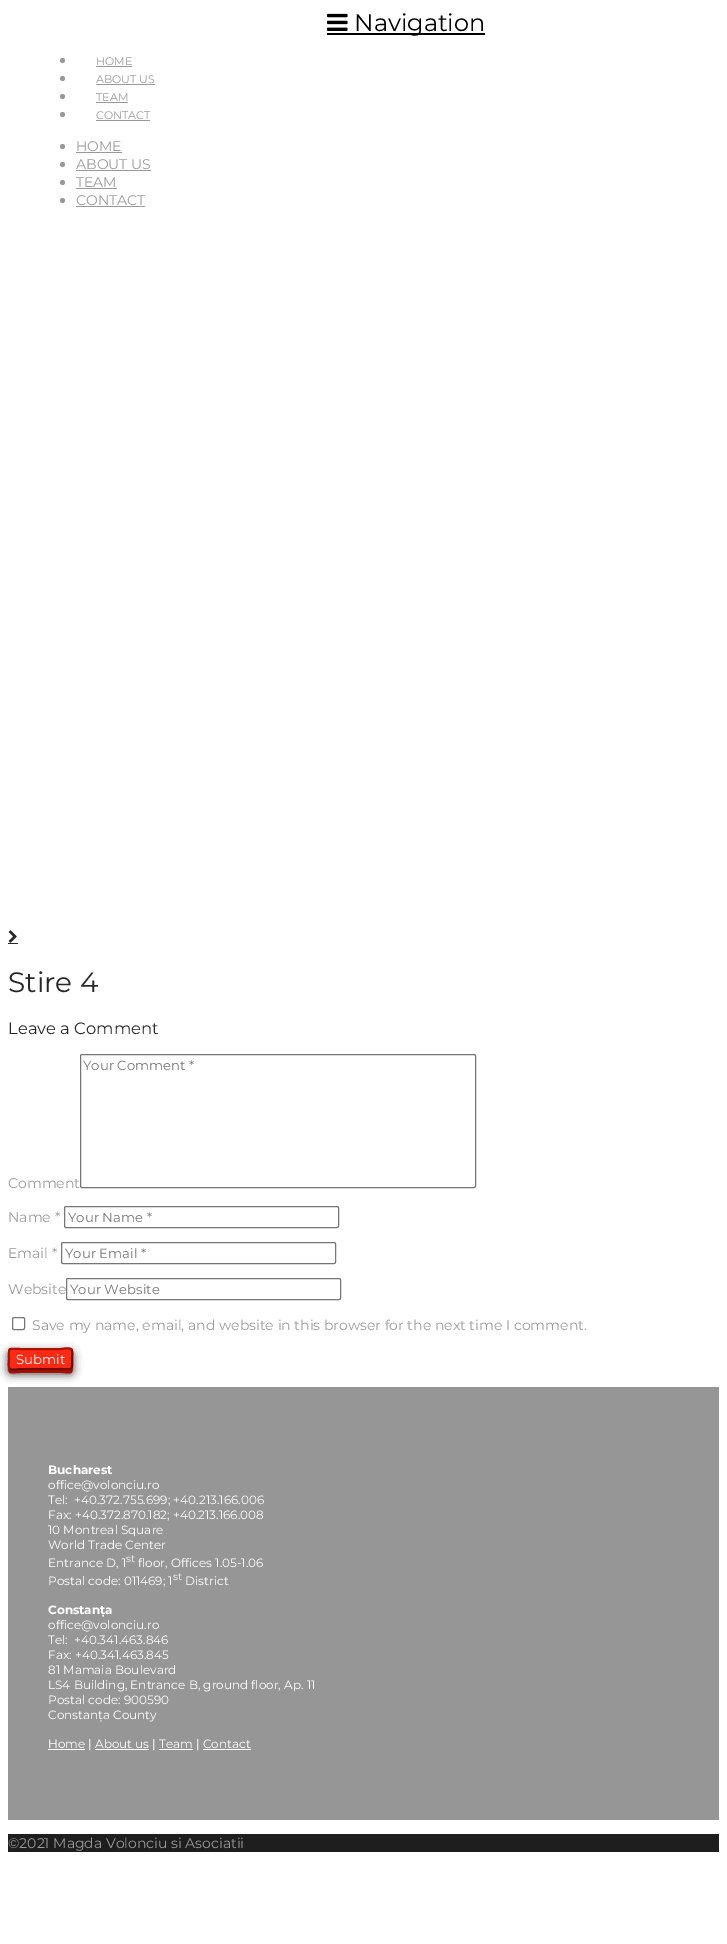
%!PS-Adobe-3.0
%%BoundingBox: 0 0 727 1944
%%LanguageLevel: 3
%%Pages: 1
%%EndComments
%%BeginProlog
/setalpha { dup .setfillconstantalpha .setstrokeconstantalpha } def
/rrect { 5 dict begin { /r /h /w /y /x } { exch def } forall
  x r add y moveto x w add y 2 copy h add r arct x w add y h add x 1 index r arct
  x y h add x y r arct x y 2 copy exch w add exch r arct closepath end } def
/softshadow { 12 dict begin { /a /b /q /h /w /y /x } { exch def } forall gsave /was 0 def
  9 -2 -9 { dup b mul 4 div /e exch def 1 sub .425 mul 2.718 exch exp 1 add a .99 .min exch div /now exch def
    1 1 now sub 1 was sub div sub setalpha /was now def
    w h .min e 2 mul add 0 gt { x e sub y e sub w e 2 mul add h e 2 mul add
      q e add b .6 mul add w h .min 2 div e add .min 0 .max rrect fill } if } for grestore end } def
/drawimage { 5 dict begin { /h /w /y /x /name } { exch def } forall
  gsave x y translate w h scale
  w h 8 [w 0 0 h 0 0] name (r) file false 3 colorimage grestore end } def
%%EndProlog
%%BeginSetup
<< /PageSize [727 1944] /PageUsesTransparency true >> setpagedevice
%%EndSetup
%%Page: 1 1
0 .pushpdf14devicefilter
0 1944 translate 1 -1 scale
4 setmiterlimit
1 setgray
0 0 727 1944 rectfill
(images/1.raw) 327 13 21 18 drawimage
0 setgray
327 33 158 2 rectfill
0.6 setgray
newpath 62.5 60.5 2.5 0 360 arc closepath fill
96 66 36 1 rectfill
newpath 62.5 78.5 2.5 0 360 arc closepath fill
96 84 59 1 rectfill
newpath 62.5 96.5 2.5 0 360 arc closepath fill
96 102 32 1 rectfill
newpath 62.5 114.5 2.5 0 360 arc closepath fill
96 120 54 1 rectfill
newpath 62.5 146.5 2.5 0 360 arc closepath fill
76 152 46 1 rectfill
newpath 62.5 164.5 2.5 0 360 arc closepath fill
76 170 75 1 rectfill
newpath 62.5 182.5 2.5 0 360 arc closepath fill
76 188 41 1 rectfill
newpath 62.5 200.5 2.5 0 360 arc closepath fill
76 206 69 1 rectfill
(images/2.raw) 8 930 9 13 drawimage
0.153 setgray
8 943 10 1 rectfill
0.463 setgray
80.5 1054.5 395 133 1.5 rrect stroke
64.5 1206.5 274 21 1.5 rrect stroke
61.5 1242.5 274 21 1.5 rrect stroke
66.5 1278.5 274 21 1.5 rrect stroke
12.5 1317.5 12 12 1.5 rrect stroke
0.588 setgray
8 1387 711 433 rectfill
0 setgray
8 1352 65 22 3 4.5 0.75 softshadow
0.655 0.063 0 setrgbcolor
newpath 8 1367 moveto 8 1376 11 1373 21 1373 curveto 60 1373 lineto 70 1373 73 1376 73 1367 curveto 73 1369 72 1370 70 1370 curveto 11 1370 lineto 9 1370 8 1369 8 1367 curveto closepath fill
1 0.165 0.075 setrgbcolor
8 1348 65 22 3 rrect fill
0.451 0.043 0 setrgbcolor
2 setlinewidth
newpath 71.5 1349.5 moveto 73 1351.5 72 1357 72 1359 curveto 72 1371.5 73.5 1369 60 1369 curveto 21 1369 lineto 17 1369 12.5 1371 9.5 1368.5 curveto stroke
0.675 0.067 0 setrgbcolor
newpath 9.5 1368.5 moveto 8 1366.5 9 1361 9 1359 curveto 9 1346.5 7.5 1349 21 1349 curveto 60 1349 lineto 64 1349 68.5 1347 71.5 1349.5 curveto stroke
1 setgray
48 1749 37 1 rectfill
95 1749 54 1 rectfill
159 1749 34 1 rectfill
203 1749 48 1 rectfill
0.118 setgray
8 1834 711 18 rectfill
/Montserrat-Regular [24 0 0 -24 0 0] selectfont
0 setgray
354 31 moveto (Navigation) show
/Montserrat-Regular [11 0 0 -11 0 0] selectfont
0.6 setgray
96 65 moveto (HOME) show
96 83 moveto (ABOUT US) show
96 101 moveto (TEAM) show
96 119 moveto (CONTACT) show
/Montserrat-Regular [14 0 0 -14 0 0] selectfont
76 151 moveto (HOME) show
76 169 moveto (ABOUT US) show
76 187 moveto (TEAM) show
76 205 moveto (CONTACT) show
/Montserrat-Regular [28 0 0 -28 0 0] selectfont
0.153 setgray
8 992 moveto (Stire 4) show
/Montserrat-Regular [16.4 0 0 -16.4 0 0] selectfont
8 1034 moveto (Leave a Comment) show
/Montserrat-Regular [13.25 0 0 -13.25 0 0] selectfont
0.459 setgray
83 1070 moveto (Your Comment *) show
/Montserrat-Regular [14 0 0 -14 0 0] selectfont
0.6 setgray
8 1188 moveto (Comment) show
8 1222 moveto (Name *) show
/Montserrat-Regular [13.25 0 0 -13.25 0 0] selectfont
0.459 setgray
68 1222 moveto (Your Name *) show
/Montserrat-Regular [14 0 0 -14 0 0] selectfont
0.6 setgray
8 1258 moveto (Email *) show
/Montserrat-Regular [13.25 0 0 -13.25 0 0] selectfont
0.459 setgray
65 1258 moveto (Your Email *) show
/Montserrat-Regular [14 0 0 -14 0 0] selectfont
0.6 setgray
8 1294 moveto (Website) show
/Montserrat-Regular [13.25 0 0 -13.25 0 0] selectfont
0.459 setgray
70 1294 moveto (Your Website) show
/Montserrat-Regular [14 0 0 -14 0 0] selectfont
0.6 setgray
32 1330 moveto (Save my name, email, and website in this browser for the next time I comment.) show
/Montserrat-Regular [13.25 0 0 -13.25 0 0] selectfont
1 setgray
16 1364 moveto (Submit) show
/Montserrat-Bold [12 0 0 -12 0 0] selectfont
48 1474 moveto (Bucharest) show
/Montserrat-Regular [12 0 0 -12 0 0] selectfont
48 1489 moveto (office@volonciu.ro) show
48 1504 moveto (Tel:  +40.372.755.699; +40.213.166.006) show
48 1519 moveto (Fax: +40.372.870.182; +40.213.166.008) show
48 1534 moveto (10 Montreal Square) show
48 1549 moveto (World Trade Center) show
48 1567 moveto (Entrance D, 1) show
/Montserrat-Regular [10 0 0 -10 0 0] selectfont
126 1562 moveto (st) show
/Montserrat-Regular [12 0 0 -12 0 0] selectfont
138 1567 moveto (floor, Offices 1.05-1.06) show
48 1585 moveto (Postal code: 011469; 1) show
/Montserrat-Regular [10 0 0 -10 0 0] selectfont
173 1580 moveto (st) show
/Montserrat-Regular [12 0 0 -12 0 0] selectfont
185 1585 moveto (District) show
/Montserrat-Bold [12 0 0 -12 0 0] selectfont
48 1614 moveto (Constanța) show
/Montserrat-Regular [12 0 0 -12 0 0] selectfont
48 1629 moveto (office@volonciu.ro) show
48 1644 moveto (Tel:  +40.341.463.846) show
48 1659 moveto (Fax: +40.341.463.845) show
48 1674 moveto (81 Mamaia Boulevard) show
48 1689 moveto (LS4 Building, Entrance B, ground floor, Ap. 11) show
48 1704 moveto (Postal code: 900590) show
48 1719 moveto (Constanța County) show
48 1748 moveto (Home | About us | Team | Contact) show
/Montserrat-Regular [14 0 0 -14 0 0] selectfont
0.6 setgray
8 1848 moveto (©2021 Magda Volonciu si Asociatii) show
.poppdf14devicefilter showpage
%%EOF
